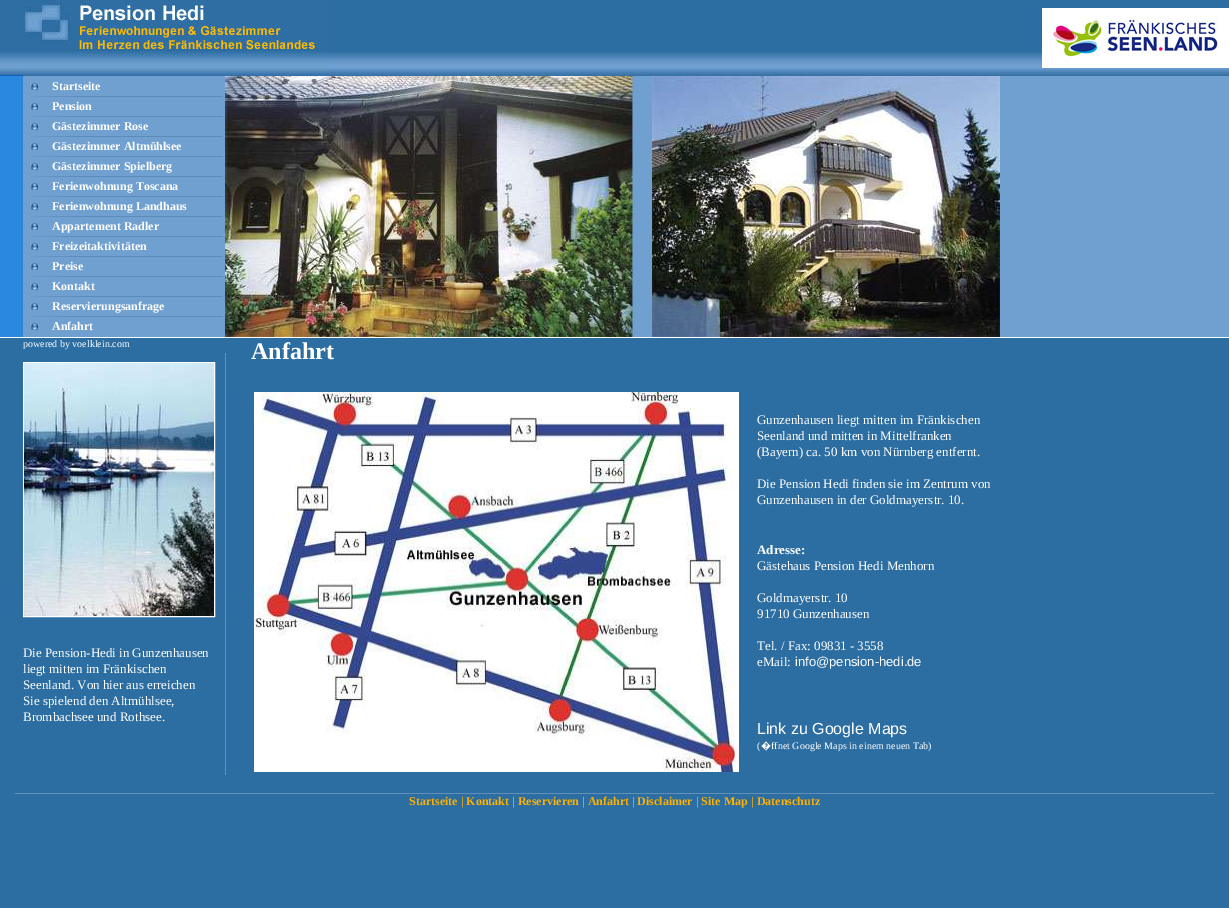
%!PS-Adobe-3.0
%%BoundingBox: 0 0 1229 908
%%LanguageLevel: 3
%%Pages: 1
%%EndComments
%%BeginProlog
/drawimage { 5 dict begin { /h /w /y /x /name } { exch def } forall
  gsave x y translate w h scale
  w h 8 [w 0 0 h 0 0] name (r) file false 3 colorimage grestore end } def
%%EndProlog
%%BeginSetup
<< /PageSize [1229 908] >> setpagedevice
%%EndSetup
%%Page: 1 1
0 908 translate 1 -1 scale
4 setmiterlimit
0.173 0.431 0.635 setrgbcolor
0 0 1229 908 rectfill
(images/1.raw) 0 0 328 76 drawimage
(images/2.raw) 328 52 901 24 drawimage
(images/3.raw) 1042 8 187 60 drawimage
(images/4.raw) 0 76 225 261 drawimage
(images/5.raw) 29 82 11 8 drawimage
(images/6.raw) 30 96 193 1 drawimage
(images/5.raw) 29 102 11 8 drawimage
(images/6.raw) 30 116 193 1 drawimage
(images/5.raw) 29 122 11 8 drawimage
(images/6.raw) 30 136 193 1 drawimage
(images/5.raw) 29 142 11 8 drawimage
(images/6.raw) 30 156 193 1 drawimage
(images/5.raw) 29 162 11 8 drawimage
(images/6.raw) 30 176 193 1 drawimage
(images/5.raw) 29 182 11 8 drawimage
(images/6.raw) 30 196 193 1 drawimage
(images/5.raw) 29 202 11 8 drawimage
(images/6.raw) 30 216 193 1 drawimage
(images/5.raw) 29 222 11 8 drawimage
(images/6.raw) 30 236 193 1 drawimage
(images/5.raw) 29 242 11 8 drawimage
(images/6.raw) 30 256 193 1 drawimage
(images/5.raw) 29 262 11 8 drawimage
(images/6.raw) 30 276 193 1 drawimage
(images/5.raw) 29 282 11 8 drawimage
(images/6.raw) 30 296 193 1 drawimage
(images/5.raw) 29 302 11 8 drawimage
(images/6.raw) 30 316 193 1 drawimage
(images/5.raw) 29 322 11 8 drawimage
(images/7.raw) 225 76 103 261 drawimage
(images/8.raw) 328 76 234 261 drawimage
(images/9.raw) 562 76 90 261 drawimage
0.439 0.627 0.816 setrgbcolor
1000 76 229 261 rectfill
(images/10.raw) 652 76 348 261 drawimage
1 setgray
0 337 1229 1 rectfill
23.5 362.5 191 254 rectstroke
(images/11.raw) 24 363 190 253 drawimage
0.384 0.569 0.722 setrgbcolor
225 353 1 422 rectfill
(images/12.raw) 254 392 485 380 drawimage
15 793 1199 1 rectfill
/LiberationSerif-Bold [12 0 0 -12 0 0] selectfont
1 setgray
52 90 moveto (Startseite) show
52 110 moveto (Pension) show
52 130 moveto (Gästezimmer Rose) show
52 150 moveto (Gästezimmer Altmühlsee) show
52 170 moveto (Gästezimmer Spielberg) show
52 190 moveto (Ferienwohnung Toscana) show
52 210 moveto (Ferienwohnung Landhaus) show
52 230 moveto (Appartement Radler) show
52 250 moveto (Freizeitaktivitäten) show
52 270 moveto (Preise) show
52 290 moveto (Kontakt) show
52 310 moveto (Reservierungsanfrage) show
52 330 moveto (Anfahrt) show
/LiberationSerif-Regular [10 0 0 -10 0 0] selectfont
23 347 moveto (powered by voelklein.com) show
/LiberationSerif-Regular [13 0 0 -13 0 0] selectfont
23 657 moveto (Die Pension-Hedi in Gunzenhausen) show
23 673 moveto (liegt mitten im Fränkischen) show
23 689 moveto (Seenland. Von hier aus erreichen) show
23 705 moveto (Sie spielend den Altmühlsee,) show
23 721 moveto (Brombachsee und Rothsee.) show
/LiberationSerif-Bold [24 0 0 -24 0 0] selectfont
251 359 moveto (Anfahrt) show
/LiberationSerif-Regular [13 0 0 -13 0 0] selectfont
757 424 moveto (Gunzenhausen liegt mitten im Fränkischen) show
757 440 moveto (Seenland und mitten in Mittelfranken) show
757 456 moveto (\(Bayern\) ca. 50 km von Nürnberg entfernt.) show
757 488 moveto (Die Pension Hedi finden sie im Zentrum von) show
757 504 moveto (Gunzenhausen in der Goldmayerstr. 10.) show
/LiberationSerif-Bold [13 0 0 -13 0 0] selectfont
757 554 moveto (Adresse:) show
/LiberationSerif-Regular [13 0 0 -13 0 0] selectfont
757 570 moveto (Gästehaus Pension Hedi Menhorn) show
757 602 moveto (Goldmayerstr. 10) show
757 618 moveto (91710 Gunzenhausen) show
757 650 moveto (Tel. / Fax: 09831 - 3558) show
757 666 moveto (eMail:) show
/LiberationSans-Regular [13 0 0 -13 0 0] selectfont
795 666 moveto (info@pension-hedi.de) show
/LiberationSans-Regular [16 0 0 -16 0 0] selectfont
757 734 moveto (Link zu Google Maps) show
/LiberationSerif-Regular [10 0 0 -10 0 0] selectfont
757 749 moveto (\() show
/NotoSans-Regular [10 0 0 -10 0 0] selectfont
761 749 moveto (�) show
/LiberationSerif-Regular [10 0 0 -10 0 0] selectfont
771 749 moveto (ffnet Google Maps in einem neuen Tab\)) show
/LiberationSerif-Bold [12 0 0 -12 0 0] selectfont
0.996 0.694 0 setrgbcolor
409 805 moveto (Startseite | Kontakt | Reservieren | Anfahrt | Disclaimer | Site Map) show
751 805 moveto (| Datenschutz) show
showpage
%%EOF
